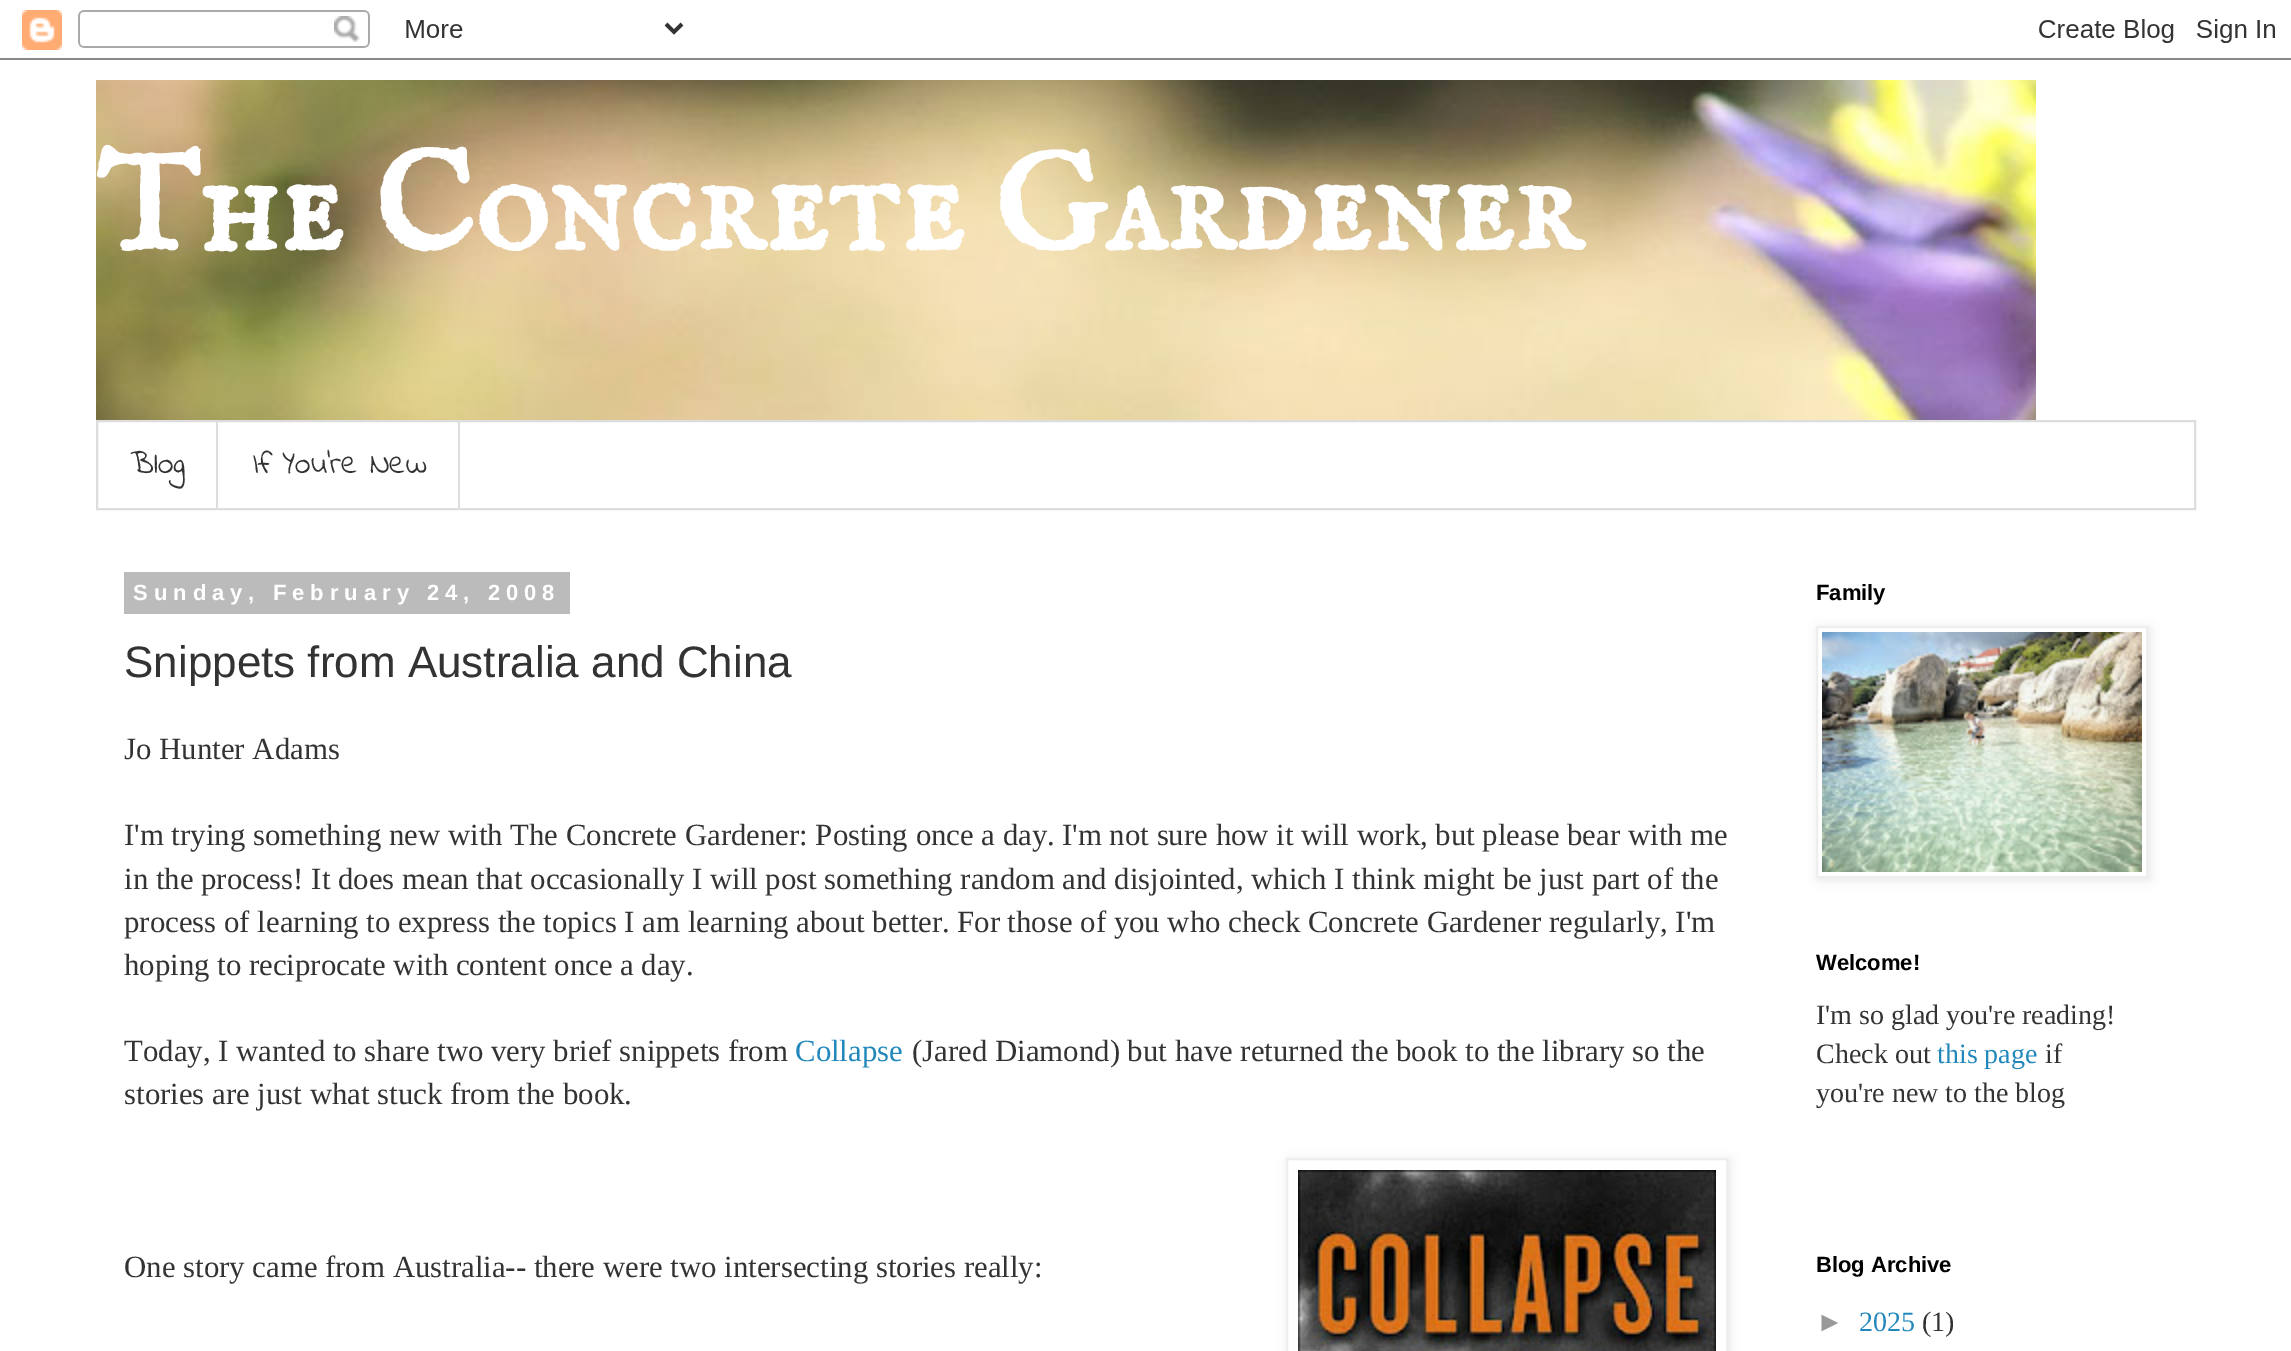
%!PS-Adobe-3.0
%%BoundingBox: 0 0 2291 1351
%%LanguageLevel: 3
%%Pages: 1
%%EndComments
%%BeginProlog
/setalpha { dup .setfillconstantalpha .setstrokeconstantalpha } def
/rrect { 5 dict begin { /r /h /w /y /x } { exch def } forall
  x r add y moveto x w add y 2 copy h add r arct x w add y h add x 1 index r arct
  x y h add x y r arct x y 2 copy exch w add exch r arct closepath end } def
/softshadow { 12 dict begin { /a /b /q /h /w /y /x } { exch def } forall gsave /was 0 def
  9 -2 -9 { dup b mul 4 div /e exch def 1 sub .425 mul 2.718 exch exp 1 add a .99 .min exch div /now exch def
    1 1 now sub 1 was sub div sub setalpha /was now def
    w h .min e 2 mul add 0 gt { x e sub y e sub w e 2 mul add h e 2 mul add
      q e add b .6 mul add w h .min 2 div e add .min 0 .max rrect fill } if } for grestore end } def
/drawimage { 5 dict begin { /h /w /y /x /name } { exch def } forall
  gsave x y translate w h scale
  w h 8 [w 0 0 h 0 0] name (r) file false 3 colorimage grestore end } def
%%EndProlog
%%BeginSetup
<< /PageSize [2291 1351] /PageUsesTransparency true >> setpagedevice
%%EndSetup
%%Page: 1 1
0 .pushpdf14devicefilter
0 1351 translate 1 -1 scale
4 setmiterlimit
1 setgray
0 0 2291 1351 rectfill
(images/1.raw) 0 10 2291 50 drawimage
(images/2.raw) 96 80 1940 340 drawimage
0.867 setgray
2 setlinewidth
97 421 2098 88 rectstroke
216 422 2 86 rectfill
458 422 2 86 rectfill
0.733 setgray
124 572 446 42 rectfill
gsave
newpath 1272 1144 moveto 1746 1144 lineto 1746 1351 lineto 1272 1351 lineto closepath 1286 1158 moveto 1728 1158 lineto 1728 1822 lineto 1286 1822 lineto closepath eoclip newpath
0 setgray
1288 1160 442 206 0 5 0.1 softshadow
grestore
0.933 setgray
1287 1159 440 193 rectstroke
(images/3.raw) 1298 1170 418 181 drawimage
gsave
newpath 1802 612 moveto 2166 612 lineto 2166 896 lineto 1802 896 lineto closepath 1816 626 moveto 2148 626 lineto 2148 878 lineto 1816 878 lineto closepath eoclip newpath
0 setgray
1818 628 332 252 0 5 0.1 softshadow
grestore
1817 627 330 250 rectstroke
(images/4.raw) 1822 632 320 240 drawimage
/IMFELLEnglishSC-Bold [140 0 0 -140 0 0] selectfont
1 setgray
96 250 moveto (The Concrete Gardener) show
/IndieFlower-Regular [32 0 0 -32 0 0] selectfont
0.2 setgray
130 473 moveto (Blog) show
253 473 moveto (If You're New) show
/LiberationSans-Bold [22 0 0 -22 0 0] selectfont
1 setgray
133 600 moveto 6 0 (Sunday, February 24, 2008) ashow
/LiberationSans-Regular [44 0 0 -44 0 0] selectfont
0.2 setgray
124 677 moveto (Snippets from Australia and China) show
/LiberationSerif-Regular [30.8 0 0 -30.8 0 0] selectfont
124 759 moveto (Jo Hunter Adams) show
124 845 moveto (I'm trying something new with The Concrete Gardener: Posting once a day.) show
1062 845 moveto (I'm not sure how it will work, but please bear with me) show
124 889 moveto (in the process! It does mean that occasionally I will post something random and disjointed, which I think might be just part of the) show
124 932 moveto (process of learning to express the topics I am learning about better.) show
957 932 moveto (For those of you who check Concrete Gardener regularly, I'm) show
124 975 moveto (hoping to reciprocate with content once a day.) show
124 1061 moveto (Today, I wanted to share two very brief snippets from) show
0.133 0.533 0.733 setrgbcolor
795 1061 moveto (Collapse) show
0.2 setgray
912 1061 moveto (\(Jared Diamond\) but have returned the book to the library so the) show
124 1104 moveto (stories are just what stuck from the book.) show
124 1277 moveto (One story came from Australia-- there were two intersecting stories really:) show
/LiberationSans-Bold [22 0 0 -22 0 0] selectfont
0 setgray
1816 600 moveto (Family) show
1816 970 moveto (Welcome!) show
/LiberationSerif-Regular [28 0 0 -28 0 0] selectfont
0.2 setgray
1816 1024 moveto (I'm so glad you're reading!) show
1816 1063 moveto (Check out) show
0.133 0.533 0.733 setrgbcolor
1937 1063 moveto (this page) show
0.2 setgray
2045 1063 moveto (if) show
1816 1102 moveto (you're new to the blog) show
/LiberationSans-Bold [22 0 0 -22 0 0] selectfont
0 setgray
1816 1272 moveto (Blog Archive) show
/LiberationSans-Regular [28 0 0 -28 0 0] selectfont
0.6 setgray
1816 1331 moveto (►) show
/LiberationSerif-Regular [28 0 0 -28 0 0] selectfont
0.133 0.533 0.733 setrgbcolor
1859 1331 moveto (2025) show
0.2 setgray
1922 1331 moveto (\(1\)) show
.poppdf14devicefilter showpage
%%EOF
